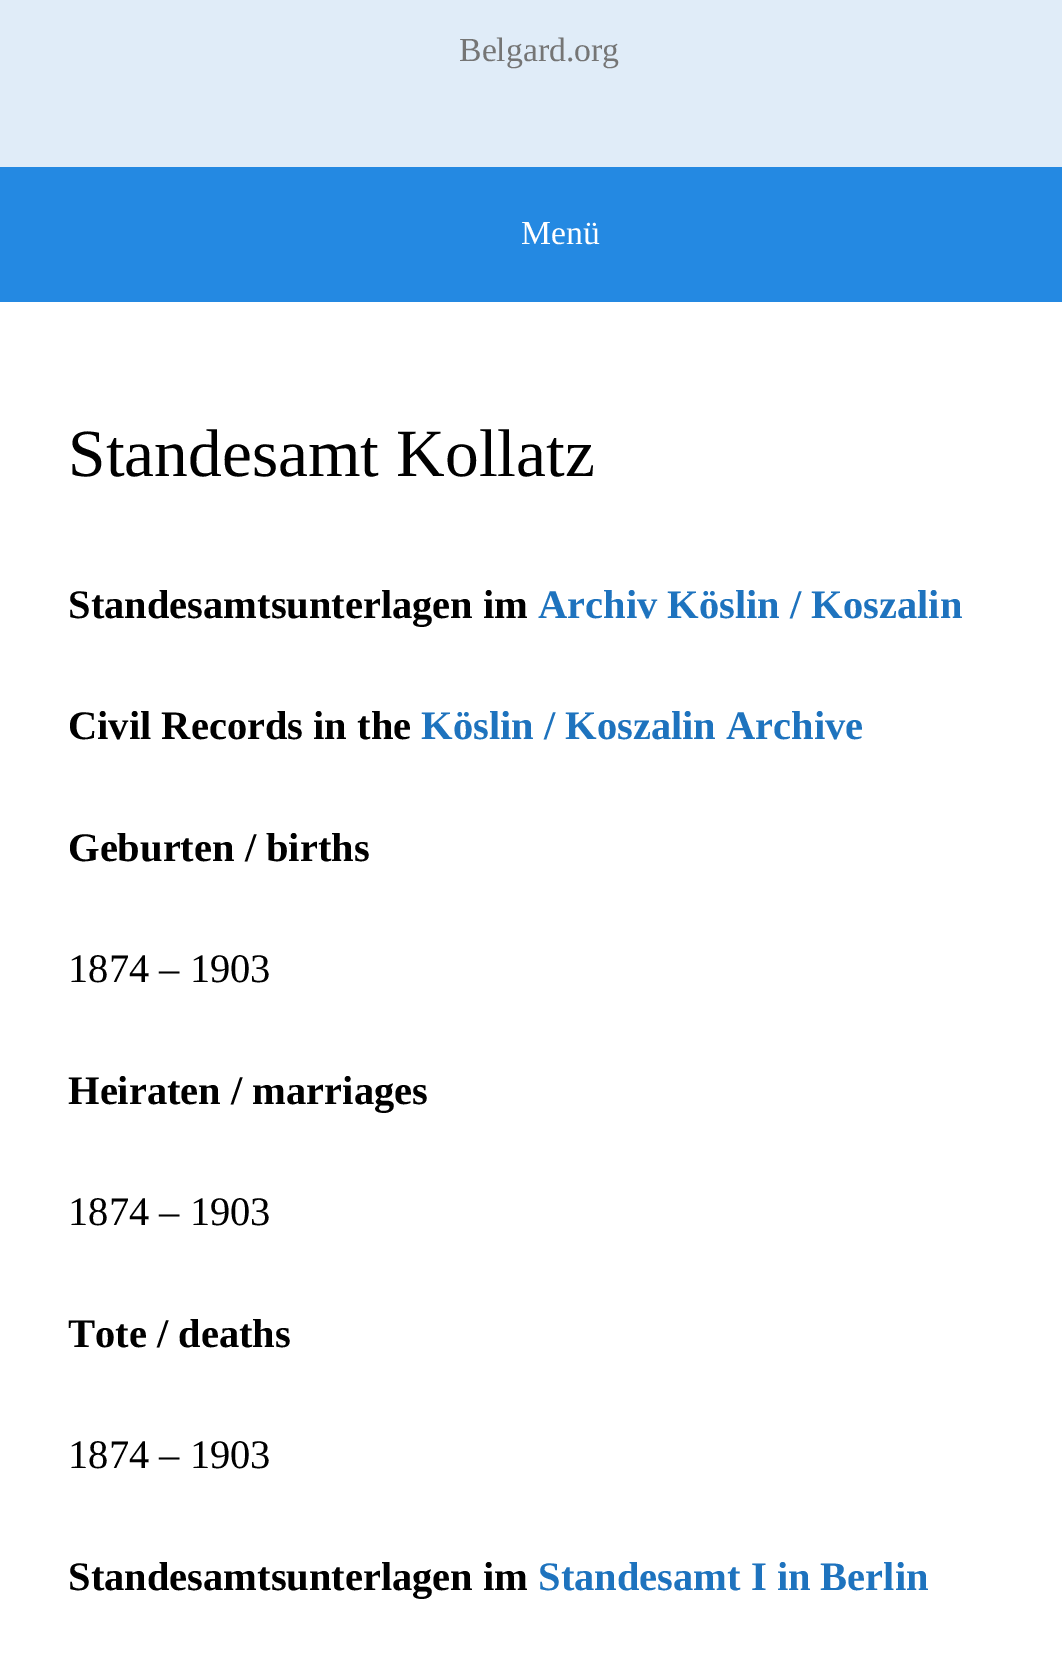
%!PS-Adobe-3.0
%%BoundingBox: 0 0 1062 1674
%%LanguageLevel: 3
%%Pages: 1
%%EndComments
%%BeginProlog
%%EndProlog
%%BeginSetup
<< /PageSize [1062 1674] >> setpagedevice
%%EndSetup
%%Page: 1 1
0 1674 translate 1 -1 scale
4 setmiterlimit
1 setgray
0 0 1062 1674 rectfill
0.878 0.925 0.973 setrgbcolor
0 0 1062 167 rectfill
0.141 0.537 0.886 setrgbcolor
0 167 1062 135 rectfill
/LiberationSerif-Regular [33.75 0 0 -33.75 0 0] selectfont
0.459 setgray
459 61 moveto (Belgard.org) show
1 setgray
521 244 moveto (Menü) show
/LiberationSerif-Regular [67.5 0 0 -67.5 0 0] selectfont
0 setgray
68 476 moveto (Standesamt Kollatz) show
/LiberationSerif-Bold [40.5 0 0 -40.5 0 0] selectfont
68 618 moveto (Standesamtsunterlagen im) show
0.118 0.451 0.745 setrgbcolor
538 618 moveto (Archiv Köslin / Koszalin) show
0 setgray
68 739 moveto (Civil Records in the) show
0.118 0.451 0.745 setrgbcolor
421 739 moveto (Köslin / Koszalin Archive) show
0 setgray
68 861 moveto (Geburten / births) show
/LiberationSerif-Regular [40.5 0 0 -40.5 0 0] selectfont
68 982 moveto (1874 – 1903) show
/LiberationSerif-Bold [40.5 0 0 -40.5 0 0] selectfont
68 1104 moveto (Heiraten / marriages) show
/LiberationSerif-Regular [40.5 0 0 -40.5 0 0] selectfont
68 1225 moveto (1874 – 1903) show
/LiberationSerif-Bold [40.5 0 0 -40.5 0 0] selectfont
68 1347 moveto (Tote / deaths) show
/LiberationSerif-Regular [40.5 0 0 -40.5 0 0] selectfont
68 1468 moveto (1874 – 1903) show
/LiberationSerif-Bold [40.5 0 0 -40.5 0 0] selectfont
68 1590 moveto (Standesamtsunterlagen im) show
0.118 0.451 0.745 setrgbcolor
538 1590 moveto (Standesamt I in Berlin) show
showpage
%%EOF
